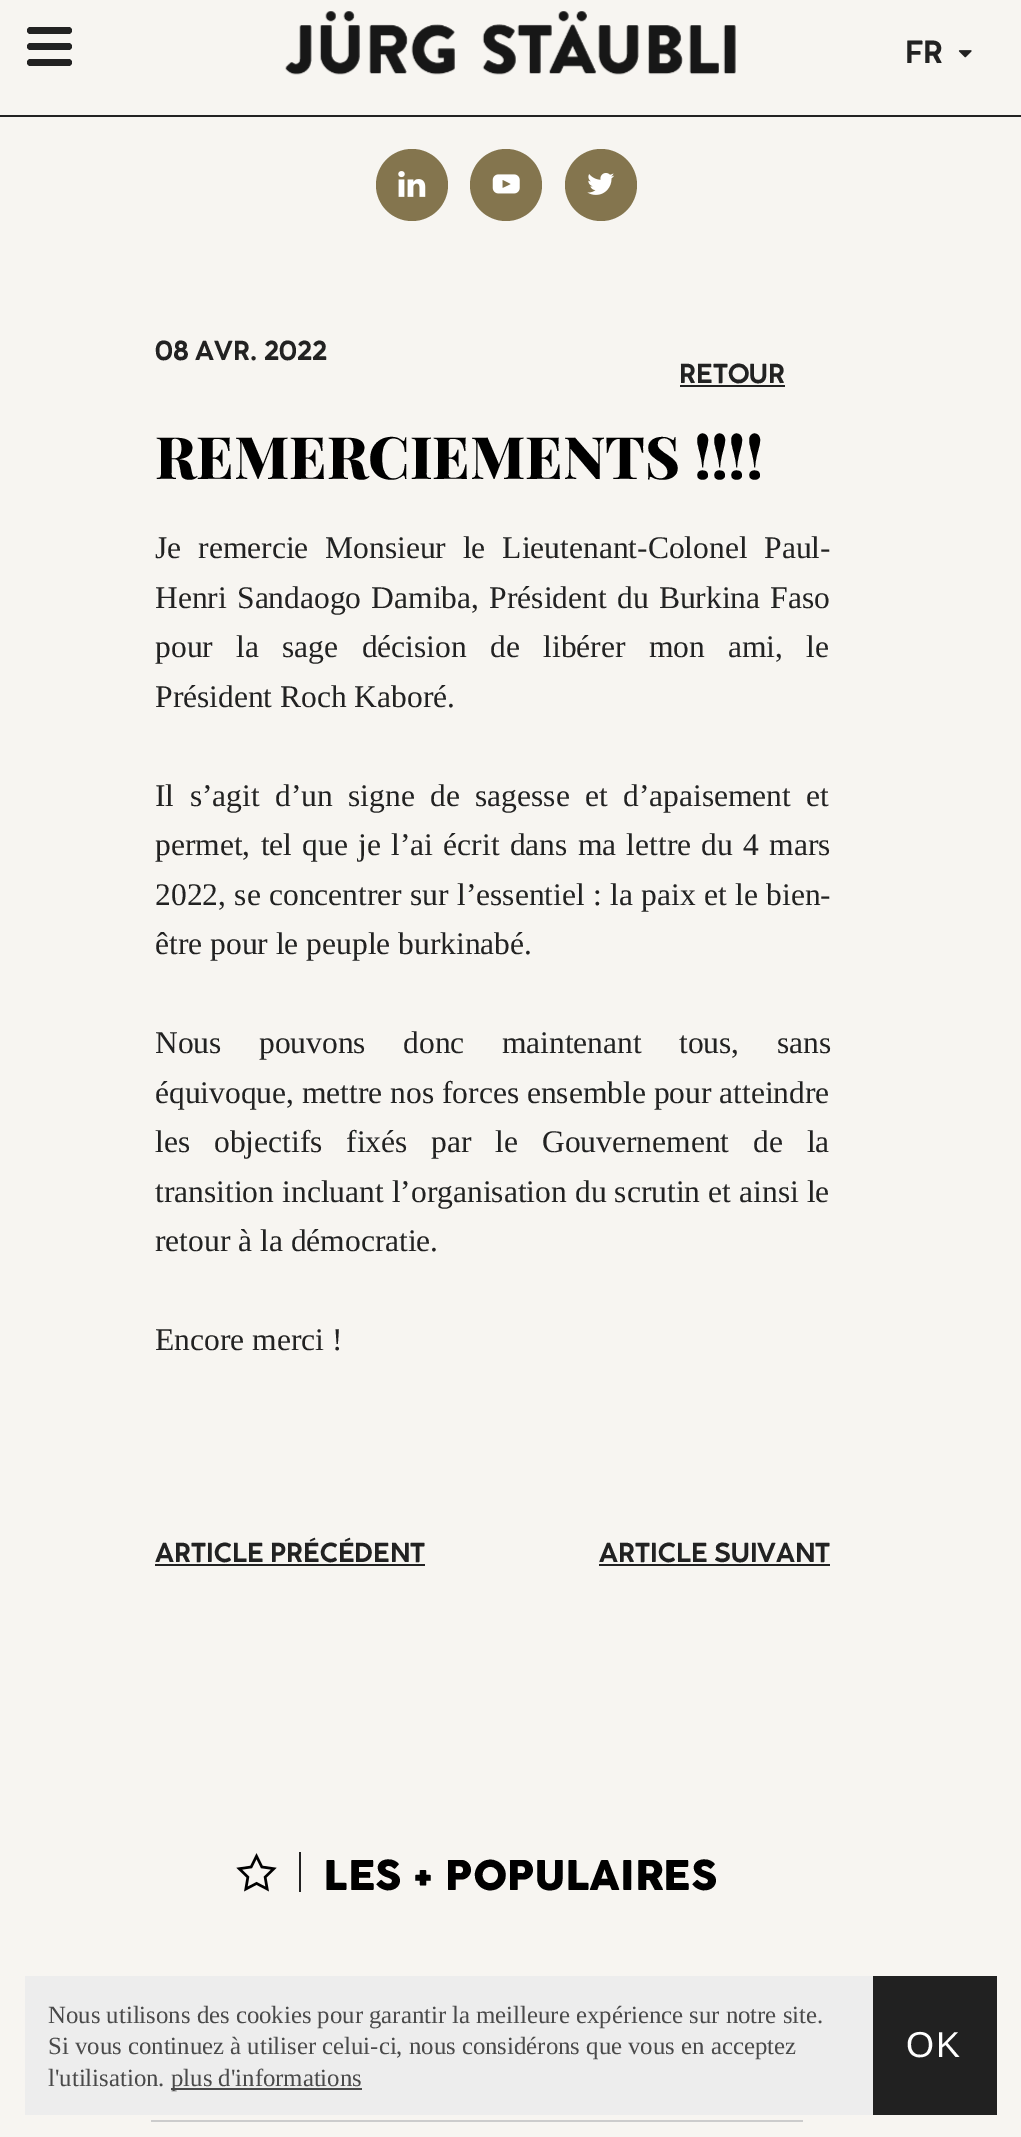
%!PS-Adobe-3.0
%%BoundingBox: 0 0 1021 2137
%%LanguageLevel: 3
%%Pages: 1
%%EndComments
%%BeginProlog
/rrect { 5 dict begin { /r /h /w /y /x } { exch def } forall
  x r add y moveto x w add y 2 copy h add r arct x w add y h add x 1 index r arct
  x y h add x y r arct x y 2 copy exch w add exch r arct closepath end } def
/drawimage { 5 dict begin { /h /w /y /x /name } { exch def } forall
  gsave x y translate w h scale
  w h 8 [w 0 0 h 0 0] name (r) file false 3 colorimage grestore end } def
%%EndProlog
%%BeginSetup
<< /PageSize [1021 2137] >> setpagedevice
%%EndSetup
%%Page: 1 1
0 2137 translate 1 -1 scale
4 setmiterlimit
0.969 0.961 0.945 setrgbcolor
0 0 1021 2137 rectfill
(images/1.raw) 285 11 451 64 drawimage
0.133 setgray
0 115 1021 2 rectfill
27 27 45 7 3.5 rrect fill
27 43 45 7 3.5 rrect fill
27 59 45 7 3.5 rrect fill
(images/2.raw) 958 50 14 8 drawimage
0.518 0.459 0.306 setrgbcolor
newpath 412 185 36 0 360 arc closepath fill
(images/3.raw) 398 171 28 26 drawimage
newpath 506 185 36 0 360 arc closepath fill
(images/4.raw) 492 174 28 20 drawimage
newpath 601 185 36 0 360 arc closepath fill
(images/5.raw) 587 173 28 22 drawimage
0.133 setgray
680 385 105 2 rectfill
155 1564 270 2 rectfill
599 1564 231 2 rectfill
(images/6.raw) 236 1853 41 39 drawimage
299 1852 2 40 rectfill
0.8 setgray
151 2120 652 2 rectfill
0.929 setgray
25 1976 848 139 rectfill
0.129 setgray
873 1976 124 139 rectfill
0.29 setgray
171 2088 191 2 rectfill
/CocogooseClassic-Bold [31.5 0 0 -31.5 0 0] selectfont
0.133 setgray
905 63 moveto (FR) show
/CocogooseClassic-Bold [27 0 0 -27 0 0] selectfont
155 360 moveto (08 AVR. 2022) show
679 383 moveto (RETOUR) show
/PlayfairDisplay-ExtraBold [58.5 0 0 -58.5 0 0] selectfont
0 setgray
155 479 moveto (REMERCIEMENTS !!!!) show
/LiberationSerif-Regular [31.5 0 0 -31.5 0 0] selectfont
0.133 setgray
155 558 moveto 9 0 32 (Je remercie Monsieur le Lieutenant-Colonel Paul-) widthshow
155 608 moveto 2.4 0 32 (Henri Sandaogo Damiba, Président du Burkina Faso) widthshow
155 657 moveto 15.5 0 32 (pour la sage décision de libérer mon ami, le) widthshow
155 707 moveto (Président Roch Kaboré.) show
155 806 moveto 7.5 0 32 (Il s’agit d’un signe de sagesse et d’apaisement et) widthshow
155 855 moveto 2.4 0 32 (permet, tel que je l’ai écrit dans ma lettre du 4 mars) widthshow
155 905 moveto 0.5 0 32 (2022, se concentrer sur l’essentiel : la paix et le bien-) widthshow
155 954 moveto (être pour le peuple burkinabé.) show
155 1053 moveto 29.5 0 32 (Nous pouvons donc maintenant tous, sans) widthshow
155 1103 moveto (équivoque, mettre nos forces ensemble pour atteindre) show
155 1152 moveto 16 0 32 (les objectifs fixés par le Gouvernement de la) widthshow
155 1202 moveto 0.25 0 32 (transition incluant l’organisation du scrutin et ainsi le) widthshow
155 1251 moveto (retour à la démocratie.) show
155 1350 moveto (Encore merci !) show
/CocogooseClassic-Bold [27 0 0 -27 0 0] selectfont
155 1562 moveto (ARTICLE PRÉCÉDENT) show
599 1562 moveto (ARTICLE SUIVANT) show
/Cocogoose-Regular [40.5 0 0 -40.5 0 0] selectfont
0 setgray
324 1890 moveto (LES + POPULAIRES) show
/LiberationSerif-Regular [24.75 0 0 -24.75 0 0] selectfont
0.29 setgray
48 2023 moveto (Nous utilisons des cookies pour garantir la meilleure expérience sur notre site.) show
48 2054 moveto (Si vous continuez à utiliser celui-ci, nous considérons que vous en acceptez) show
/LiberationSans-Regular [36 0 0 -36 0 0] selectfont
1 setgray
906 2057 moveto 2 0 (OK) ashow
/LiberationSerif-Regular [24.75 0 0 -24.75 0 0] selectfont
0.29 setgray
48 2086 moveto (l'utilisation.) show
171 2086 moveto (plus d'informations) show
showpage
%%EOF
